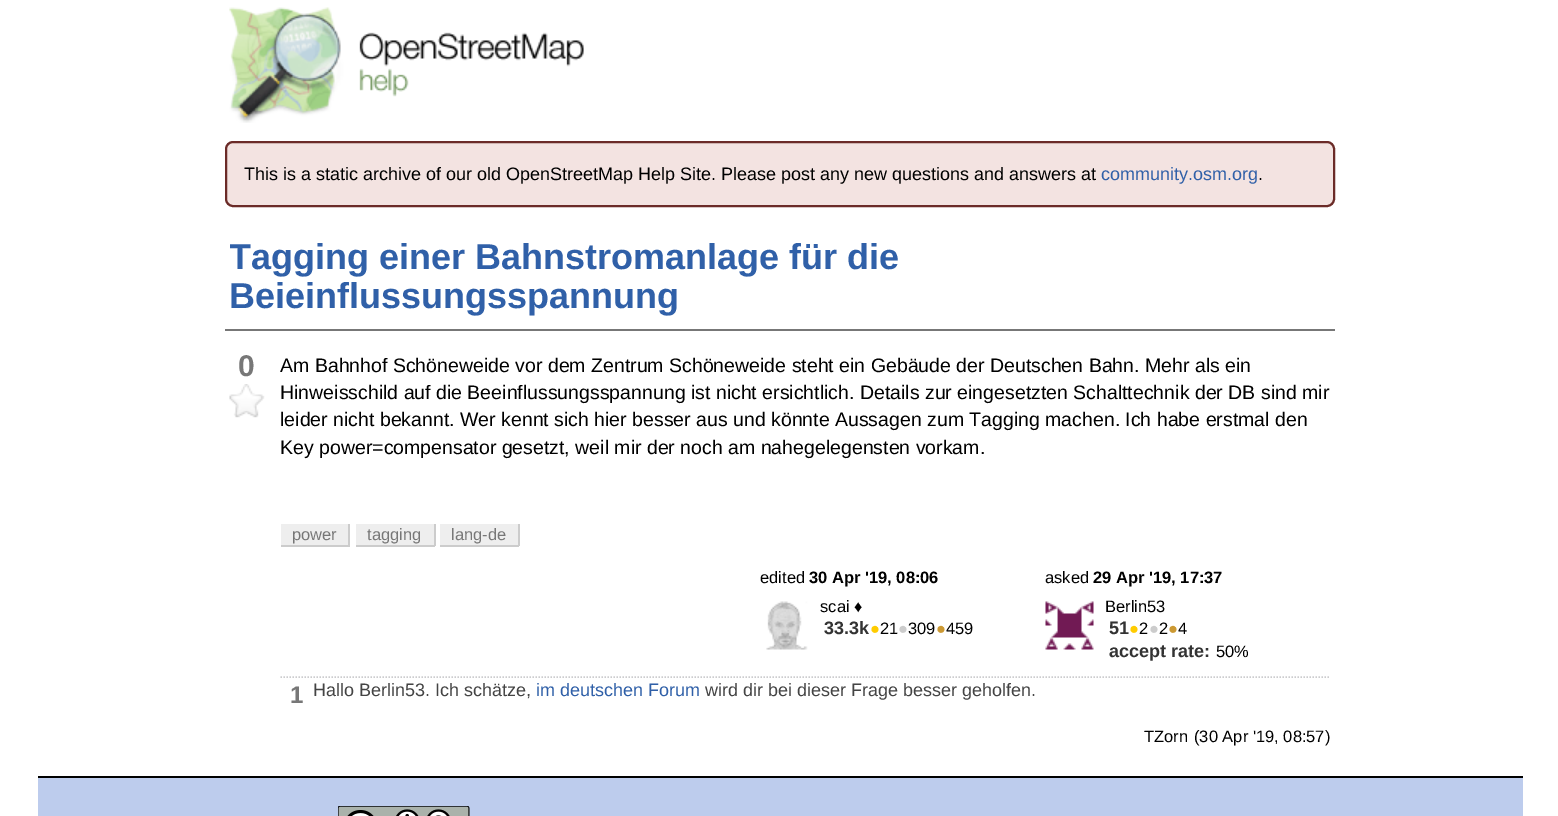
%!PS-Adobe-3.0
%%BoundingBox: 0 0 1558 816
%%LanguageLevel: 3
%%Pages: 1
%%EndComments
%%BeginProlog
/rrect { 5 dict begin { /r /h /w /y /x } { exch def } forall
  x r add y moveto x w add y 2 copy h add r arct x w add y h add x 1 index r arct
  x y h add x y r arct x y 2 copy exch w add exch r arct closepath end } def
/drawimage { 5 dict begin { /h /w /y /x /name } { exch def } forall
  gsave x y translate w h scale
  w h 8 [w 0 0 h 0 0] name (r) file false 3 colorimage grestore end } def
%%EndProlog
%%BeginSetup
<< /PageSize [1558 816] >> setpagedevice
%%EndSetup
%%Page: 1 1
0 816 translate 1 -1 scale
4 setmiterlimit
1 setgray
0 0 1558 816 rectfill
(images/1.raw) 229 7 355 116 drawimage
0.953 0.89 0.882 setrgbcolor
226 142 1108 64 7 rrect gsave fill grestore
0.42 0.169 0.157 setrgbcolor
2 setlinewidth
stroke
0.467 setgray
225 329 1110 2 rectfill
(images/2.raw) 229 384 36 34 drawimage
0.933 setgray
281 524 67 21 rectfill
0.8 setgray
348 524 2 22 rectfill
281 545 69 2 rectfill
0.933 setgray
356 524 78 21 rectfill
0.8 setgray
434 524 2 22 rectfill
356 545 79 2 rectfill
0.933 setgray
440 524 78 21 rectfill
0.8 setgray
518 524 2 22 rectfill
440 545 79 2 rectfill
(images/3.raw) 766 601 42 49 drawimage
(images/4.raw) 1045 601 49 49 drawimage
0.8 0.8 0.808 setrgbcolor
1.5 setlinewidth
[1.5 1.5] 0 setdash
newpath 280.5 677 moveto 1330.5 677 lineto stroke
0.741 0.8 0.929 setrgbcolor
38 778 1485 38 rectfill
0 setgray
38 776 1485 2 rectfill
(images/5.raw) 338 806 132 10 drawimage
/LiberationSans-Regular [18 0 0 -18 0 0] selectfont
244 180 moveto (This is a static archive of our old OpenStreetMap Help Site. Please post any new questions and answers at) show
0.188 0.376 0.659 setrgbcolor
1101 180 moveto (community.osm.org) show
0 setgray
1258 180 moveto (.) show
gsave
230 230 1101 94 rectclip
/LiberationSans-Bold [36 0 0 -36 0 0] selectfont
0.188 0.376 0.659 setrgbcolor
229 269 moveto (Tagging einer Bahnstromanlage für die) show
grestore
/LiberationSans-Bold [36 0 0 -36 0 0] selectfont
0.188 0.376 0.659 setrgbcolor
229 308 moveto (Beieinflussungsspannung) show
/LiberationSans-Bold [30 0 0 -30 0 0] selectfont
0.467 setgray
238 376 moveto (0) show
/LiberationSans-Regular [19.5 0 0 -19.5 0 0] selectfont
0 setgray
280 372 moveto (Am Bahnhof Schöneweide vor dem Zentrum Schöneweide steht ein Gebäude der Deutschen Bahn. Mehr als ein) show
280 399 moveto (Hinweisschild auf die Beeinflussungsspannung ist nicht ersichtlich. Details zur eingesetzten Schalttechnik der DB sind mir) show
280 426 moveto (leider nicht bekannt. Wer kennt sich hier besser aus und könnte Aussagen zum Tagging machen. Ich habe erstmal den) show
280 454 moveto (Key power=compensator gesetzt, weil mir der noch am nahegelegensten vorkam.) show
/LiberationSans-Regular [16.5 0 0 -16.5 0 0] selectfont
0.467 setgray
292 540 moveto (power) show
367 540 moveto (tagging) show
451 540 moveto (lang-de) show
0 setgray
760 583 moveto (edited) show
/LiberationSans-Bold [16.5 0 0 -16.5 0 0] selectfont
809 583 moveto (30 Apr '19, 08:06) show
/LiberationSans-Regular [16.5 0 0 -16.5 0 0] selectfont
820 612 moveto (scai ♦) show
/LiberationSans-Bold [18 0 0 -18 0 0] selectfont
0.2 setgray
824 634 moveto (33.3k) show
/LiberationSans-Regular [16.5 0 0 -16.5 0 0] selectfont
1 0.8 0 setrgbcolor
870 634 moveto (●) show
0 setgray
880 634 moveto (21) show
0.8 setgray
898 634 moveto (●) show
0 setgray
908 634 moveto (309) show
0.8 0.6 0.2 setrgbcolor
936 634 moveto (●) show
0 setgray
946 634 moveto (459) show
1045 583 moveto (asked) show
/LiberationSans-Bold [16.5 0 0 -16.5 0 0] selectfont
1093 583 moveto (29 Apr '19, 17:37) show
/LiberationSans-Regular [16.5 0 0 -16.5 0 0] selectfont
1105 612 moveto (Berlin53) show
/LiberationSans-Bold [18 0 0 -18 0 0] selectfont
0.2 setgray
1109 634 moveto (51) show
/LiberationSans-Regular [16.5 0 0 -16.5 0 0] selectfont
1 0.8 0 setrgbcolor
1129 634 moveto (●) show
0 setgray
1139 634 moveto (2) show
0.8 setgray
1149 634 moveto (●) show
0 setgray
1159 634 moveto (2) show
0.8 0.6 0.2 setrgbcolor
1168 634 moveto (●) show
0 setgray
1178 634 moveto (4) show
/LiberationSans-Bold [18 0 0 -18 0 0] selectfont
0.2 setgray
1109 657 moveto (accept rate:) show
/LiberationSans-Regular [16.5 0 0 -16.5 0 0] selectfont
0 setgray
1216 657 moveto (50%) show
/LiberationSans-Bold [24 0 0 -24 0 0] selectfont
0.467 setgray
290 703 moveto (1) show
/LiberationSans-Regular [18 0 0 -18 0 0] selectfont
0.267 setgray
313 696 moveto (Hallo Berlin53. Ich schätze,) show
0.188 0.376 0.659 setrgbcolor
536 696 moveto (im deutschen Forum) show
0.267 setgray
705 696 moveto (wird dir bei dieser Frage besser geholfen.) show
/LiberationSans-Regular [16.5 0 0 -16.5 0 0] selectfont
0 setgray
1144 742 moveto (TZorn) show
1194 742 moveto (\(30 Apr '19, 08:57\)) show
showpage
%%EOF
